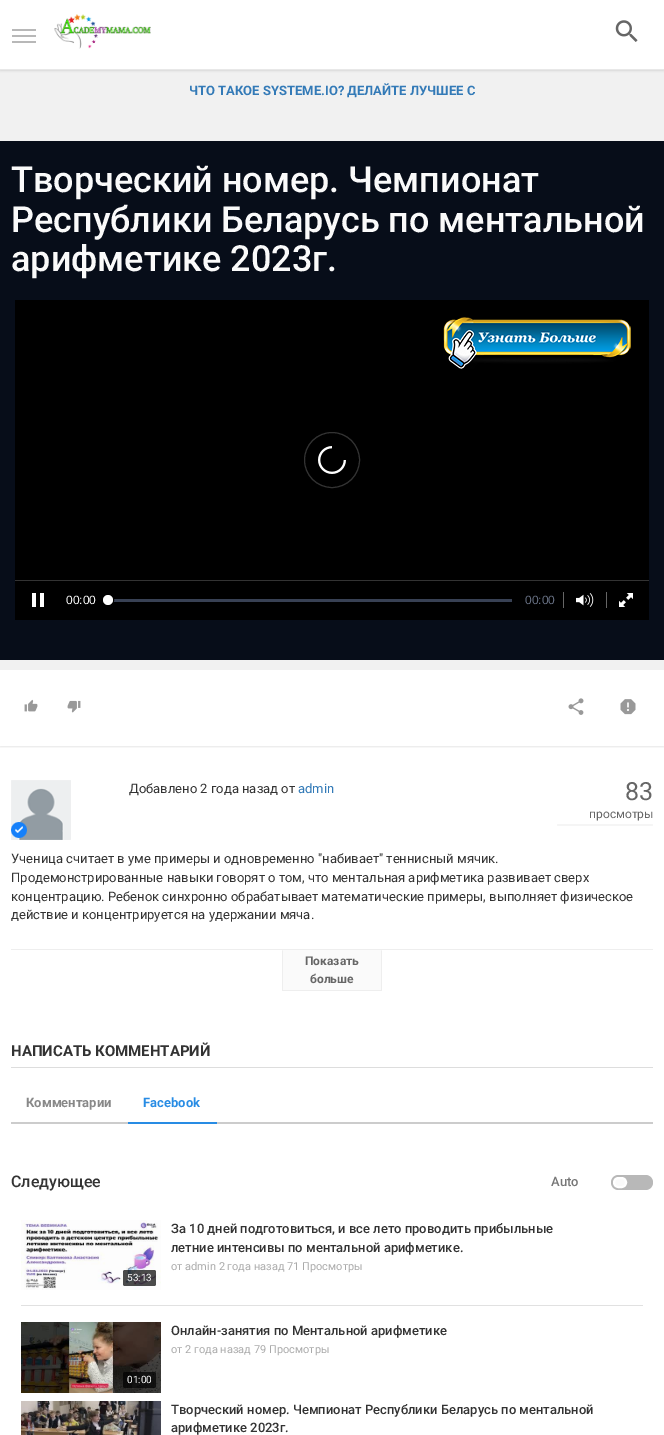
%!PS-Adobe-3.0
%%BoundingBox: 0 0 664 1435
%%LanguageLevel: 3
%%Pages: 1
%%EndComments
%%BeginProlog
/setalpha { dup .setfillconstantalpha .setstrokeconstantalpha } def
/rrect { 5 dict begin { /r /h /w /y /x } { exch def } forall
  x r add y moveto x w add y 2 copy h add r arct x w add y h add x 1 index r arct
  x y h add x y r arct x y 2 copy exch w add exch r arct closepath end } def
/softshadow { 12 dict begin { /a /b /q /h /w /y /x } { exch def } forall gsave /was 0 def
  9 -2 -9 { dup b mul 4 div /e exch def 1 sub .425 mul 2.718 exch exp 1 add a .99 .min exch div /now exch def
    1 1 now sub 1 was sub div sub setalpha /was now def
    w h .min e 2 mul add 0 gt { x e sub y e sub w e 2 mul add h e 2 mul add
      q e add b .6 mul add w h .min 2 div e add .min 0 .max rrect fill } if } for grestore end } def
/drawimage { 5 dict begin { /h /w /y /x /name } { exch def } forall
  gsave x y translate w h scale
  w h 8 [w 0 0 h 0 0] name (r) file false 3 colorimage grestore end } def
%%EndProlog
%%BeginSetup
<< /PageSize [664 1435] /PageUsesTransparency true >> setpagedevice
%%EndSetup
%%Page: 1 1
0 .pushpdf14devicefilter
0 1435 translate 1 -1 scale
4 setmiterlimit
0.945 setgray
0 0 664 1435 rectfill
0 setgray
0 1 664 70 0 1 0.1 softshadow
1 setgray
0 0 664 69 rectfill
0.91 setgray
0 69 664 1 rectfill
0.722 setgray
12 35 24 2 rectfill
12 29 24 2 rectfill
12 41 24 2 rectfill
(images/1.raw) 54 14 97 35 drawimage
(images/2.raw) 615 20 23 22 drawimage
0.027 0.051 0.098 setrgbcolor
0 141 664 519 rectfill
0 setgray
15 300 634 320 rectfill
(images/3.raw) 443 317 188 52 drawimage
0.2 setgray
newpath 332 460 27.5 0 360 arc closepath stroke
(images/4.raw) 318 446 28 28 drawimage
15 580 634 1 rectfill
(images/5.raw) 32 593 12 14 drawimage
0.22 0.255 0.329 setrgbcolor
108 599 404 3 rectfill
0 setgray
newpath 108 600 5.5 0 360 arc closepath stroke
1 setgray
newpath 108 600 5 0 360 arc closepath fill
0.4 setgray
563 592 1 16 rectfill
(images/6.raw) 576 593 18 14 drawimage
606 592 1 16 rectfill
(images/7.raw) 619 593 14 14 drawimage
1 setgray
0 670 664 765 rectfill
gsave
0 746 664 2 rectclip
0 setgray
0 671 664 76 0 1 0.1 softshadow
grestore
(images/8.raw) 24 699 14 13 drawimage
(images/9.raw) 67 700 14 13 drawimage
(images/10.raw) 568 698 16 17 drawimage
(images/11.raw) 620 699 16 16 drawimage
(images/12.raw) 11 780 60 60 drawimage
(images/13.raw) 11 822 16 16 drawimage
0.961 setgray
557 824 96 2 1 rrect fill
0.933 setgray
11 949 642 1 rectfill
0.98 setgray
282 950 100 40 rectfill
0.933 setgray
newpath 382 950 moveto 382 991 lineto 381 990 lineto 381 951 lineto closepath fill
282 990 100 1 rectfill
newpath 282 991 moveto 282 950 lineto 283 951 lineto 283 990 lineto closepath fill
0.867 setgray
11 1067 642 1 rectfill
0.8 setgray
11 1122 642 2 rectfill
0.157 0.549 0.894 setrgbcolor
128 1122 89 2 rectfill
0.722 setgray
611 1175 42 15 7.5 rrect fill
0.98 setgray
614 1178 12 9 4.5 rrect gsave fill grestore
1 setgray
2 setlinewidth
stroke
0.882 setgray
21 1305 622 1 rectfill
(images/14.raw) 21 1220 140 70 drawimage
0.7 setalpha
0 setgray
123 1270 33 16 2 rrect fill
1 setalpha
(images/15.raw) 21 1322 140 71 drawimage
0.7 setalpha
123 1372 33 16 2 rrect fill
1 setalpha
(images/16.raw) 21 1401 140 34 drawimage
/Roboto-Bold [13 0 0 -13 0 0] selectfont
0.2 0.478 0.718 setrgbcolor
189 95 moveto (ЧТО ТАКОЕ SYSTEME.IO? ДЕЛАЙТЕ ЛУЧШЕЕ С) show
/Roboto-Medium [36 0 0 -36 0 0] selectfont
0.98 setgray
11 192 moveto (Творческий номер. Чемпионат) show
11 232 moveto (Республики Беларусь по ментальной) show
11 271 moveto (арифметике 2023г.) show
/LiberationSans-Regular [12 0 0 -12 0 0] selectfont
66 604 moveto (00:00) show
0.4 0.435 0.51 setrgbcolor
525 604 moveto (00:00) show
/Roboto-Regular [13 0 0 -13 0 0] selectfont
0.2 setgray
129 793 moveto (Добавлено 2 года назад от) show
0.2 0.478 0.718 setrgbcolor
298 793 moveto (admin) show
/Roboto-Regular [25 0 0 -25 0 0] selectfont
0.4 setgray
625 800 moveto (83) show
/Roboto-Regular [12 0 0 -12 0 0] selectfont
589 818 moveto (просмотры) show
/Roboto-Regular [13 0 0 -13 0 0] selectfont
0.2 setgray
11 863 moveto (Ученица считает в уме примеры и одновременно "набивает" теннисный мячик.) show
11 882 moveto (Продемонстрированные навыки говорят о том, что ментальная арифметика развивает сверх) show
11 901 moveto (концентрацию. Ребенок синхронно обрабатывает математические примеры, выполняет физическое) show
11 919 moveto (действие и концентрируется на удержании мяча.) show
/Roboto-Bold [12 0 0 -12 0 0] selectfont
0.4 setgray
305 965 moveto (Показать) show
310 983 moveto (больше) show
/Roboto-Bold [15 0 0 -15 0 0] selectfont
0.2 setgray
11 1056 moveto (НАПИСАТЬ КОММЕНТАРИЙ) show
/Roboto-Bold [13 0 0 -13 0 0] selectfont
0.533 setgray
26 1107 moveto (Комментарии) show
0.157 0.549 0.894 setrgbcolor
143 1107 moveto (Facebook) show
/Roboto-Medium [16 0 0 -16 0 0] selectfont
0.2 setgray
11 1187 moveto (Следующее) show
/Roboto-Medium [13 0 0 -13 0 0] selectfont
0.467 setgray
551 1186 moveto (Auto) show
0.2 setgray
171 1233 moveto (За 10 дней подготовиться, и все лето проводить прибыльные) show
171 1252 moveto (летние интенсивы по ментальной арифметике.) show
/Roboto-Regular [11 0 0 -11 0 0] selectfont
0.667 setgray
171 1270 moveto (от admin 2 года назад 71 Просмотры) show
/Roboto-Regular [10 0 0 -10 0 0] selectfont
0.98 setgray
127 1281 moveto (53:13) show
/Roboto-Medium [13 0 0 -13 0 0] selectfont
0.2 setgray
171 1335 moveto (Онлайн-занятия по Ментальной арифметике) show
/Roboto-Regular [11 0 0 -11 0 0] selectfont
0.667 setgray
171 1353 moveto (от 2 года назад 79 Просмотры) show
/Roboto-Regular [10 0 0 -10 0 0] selectfont
0.98 setgray
127 1383 moveto (01:00) show
/Roboto-Medium [13 0 0 -13 0 0] selectfont
0.2 setgray
171 1414 moveto (Творческий номер. Чемпионат Республики Беларусь по ментальной) show
171 1432 moveto (арифметике 2023г.) show
.poppdf14devicefilter showpage
%%EOF
